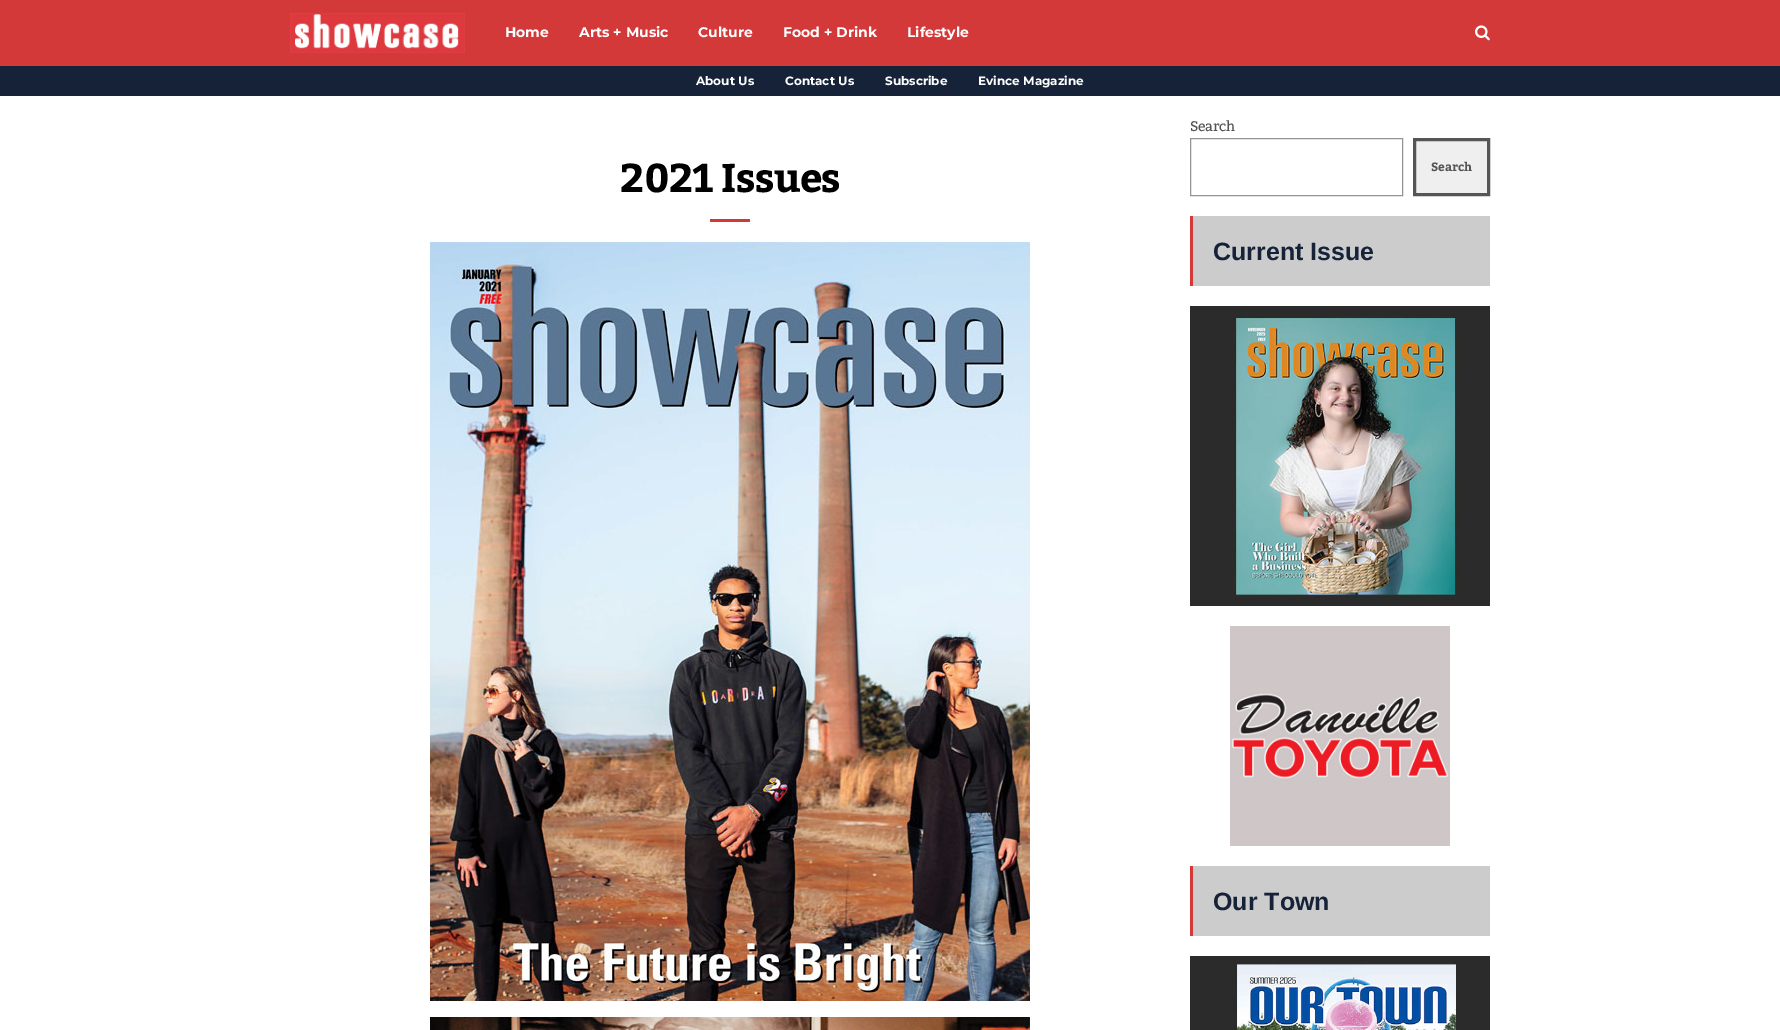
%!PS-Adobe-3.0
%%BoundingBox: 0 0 1780 1030
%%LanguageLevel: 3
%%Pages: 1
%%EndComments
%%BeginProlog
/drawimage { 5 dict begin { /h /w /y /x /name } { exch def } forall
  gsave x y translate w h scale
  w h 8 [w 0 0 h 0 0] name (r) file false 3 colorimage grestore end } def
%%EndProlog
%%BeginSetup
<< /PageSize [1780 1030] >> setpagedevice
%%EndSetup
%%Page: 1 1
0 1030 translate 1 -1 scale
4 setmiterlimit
1 setgray
0 0 1780 1030 rectfill
0.831 0.224 0.224 setrgbcolor
0 0 1780 66 rectfill
(images/1.raw) 290 13 175 40 drawimage
(images/2.raw) 1475 25 15 16 drawimage
0.086 0.133 0.22 setrgbcolor
0 66 1780 30 rectfill
0.831 0.224 0.224 setrgbcolor
710 219 40 3 rectfill
(images/3.raw) 430 242 600 759 drawimage
(images/4.raw) 430 1017 600 13 drawimage
0.58 setgray
1190.5 138.5 212 57 rectstroke
0.937 setgray
newpath 1414.5 139.5 moveto 1488.5 139.5 lineto 1488.5 194.5 lineto 1414.5 194.5 lineto closepath gsave fill grestore
0.333 setgray
3 setlinewidth
stroke
0.8 setgray
1193 216 297 70 rectfill
0.831 0.224 0.224 setrgbcolor
1190 216 3 70 rectfill
(images/5.raw) 1190 306 300 300 drawimage
(images/6.raw) 1230 626 220 220 drawimage
0.8 setgray
1193 866 297 70 rectfill
0.831 0.224 0.224 setrgbcolor
1190 866 3 70 rectfill
(images/7.raw) 1190 956 300 74 drawimage
/Montserrat-Bold [14 0 0 -14 0 0] selectfont
1 setgray
505 37 moveto (Home) show
579 37 moveto (Arts + Music) show
698 37 moveto (Culture) show
783 37 moveto (Food + Drink) show
907 37 moveto (Lifestyle) show
/Montserrat-Bold [12 0 0 -12 0 0] selectfont
696 85 moveto (About Us) show
785 85 moveto (Contact Us) show
885 85 moveto (Subscribe) show
978 85 moveto (Evince Magazine) show
/Kadwa-Bold [40 0 0 -40 0 0] selectfont
0 setgray
620 192 moveto -0.75 0 (2021 Issues) ashow
/Kadwa-Regular [14 0 0 -14 0 0] selectfont
0.333 setgray
1190 131 moveto -0.25 0 (Search) ashow
/Kadwa-Bold [12 0 0 -12 0 0] selectfont
1431 171 moveto (Search) show
/LiberationSans-Bold [25 0 0 -25 0 0] selectfont
0.086 0.133 0.22 setrgbcolor
1213 260 moveto (Current Issue) show
1213 910 moveto (Our Town) show
showpage
%%EOF
